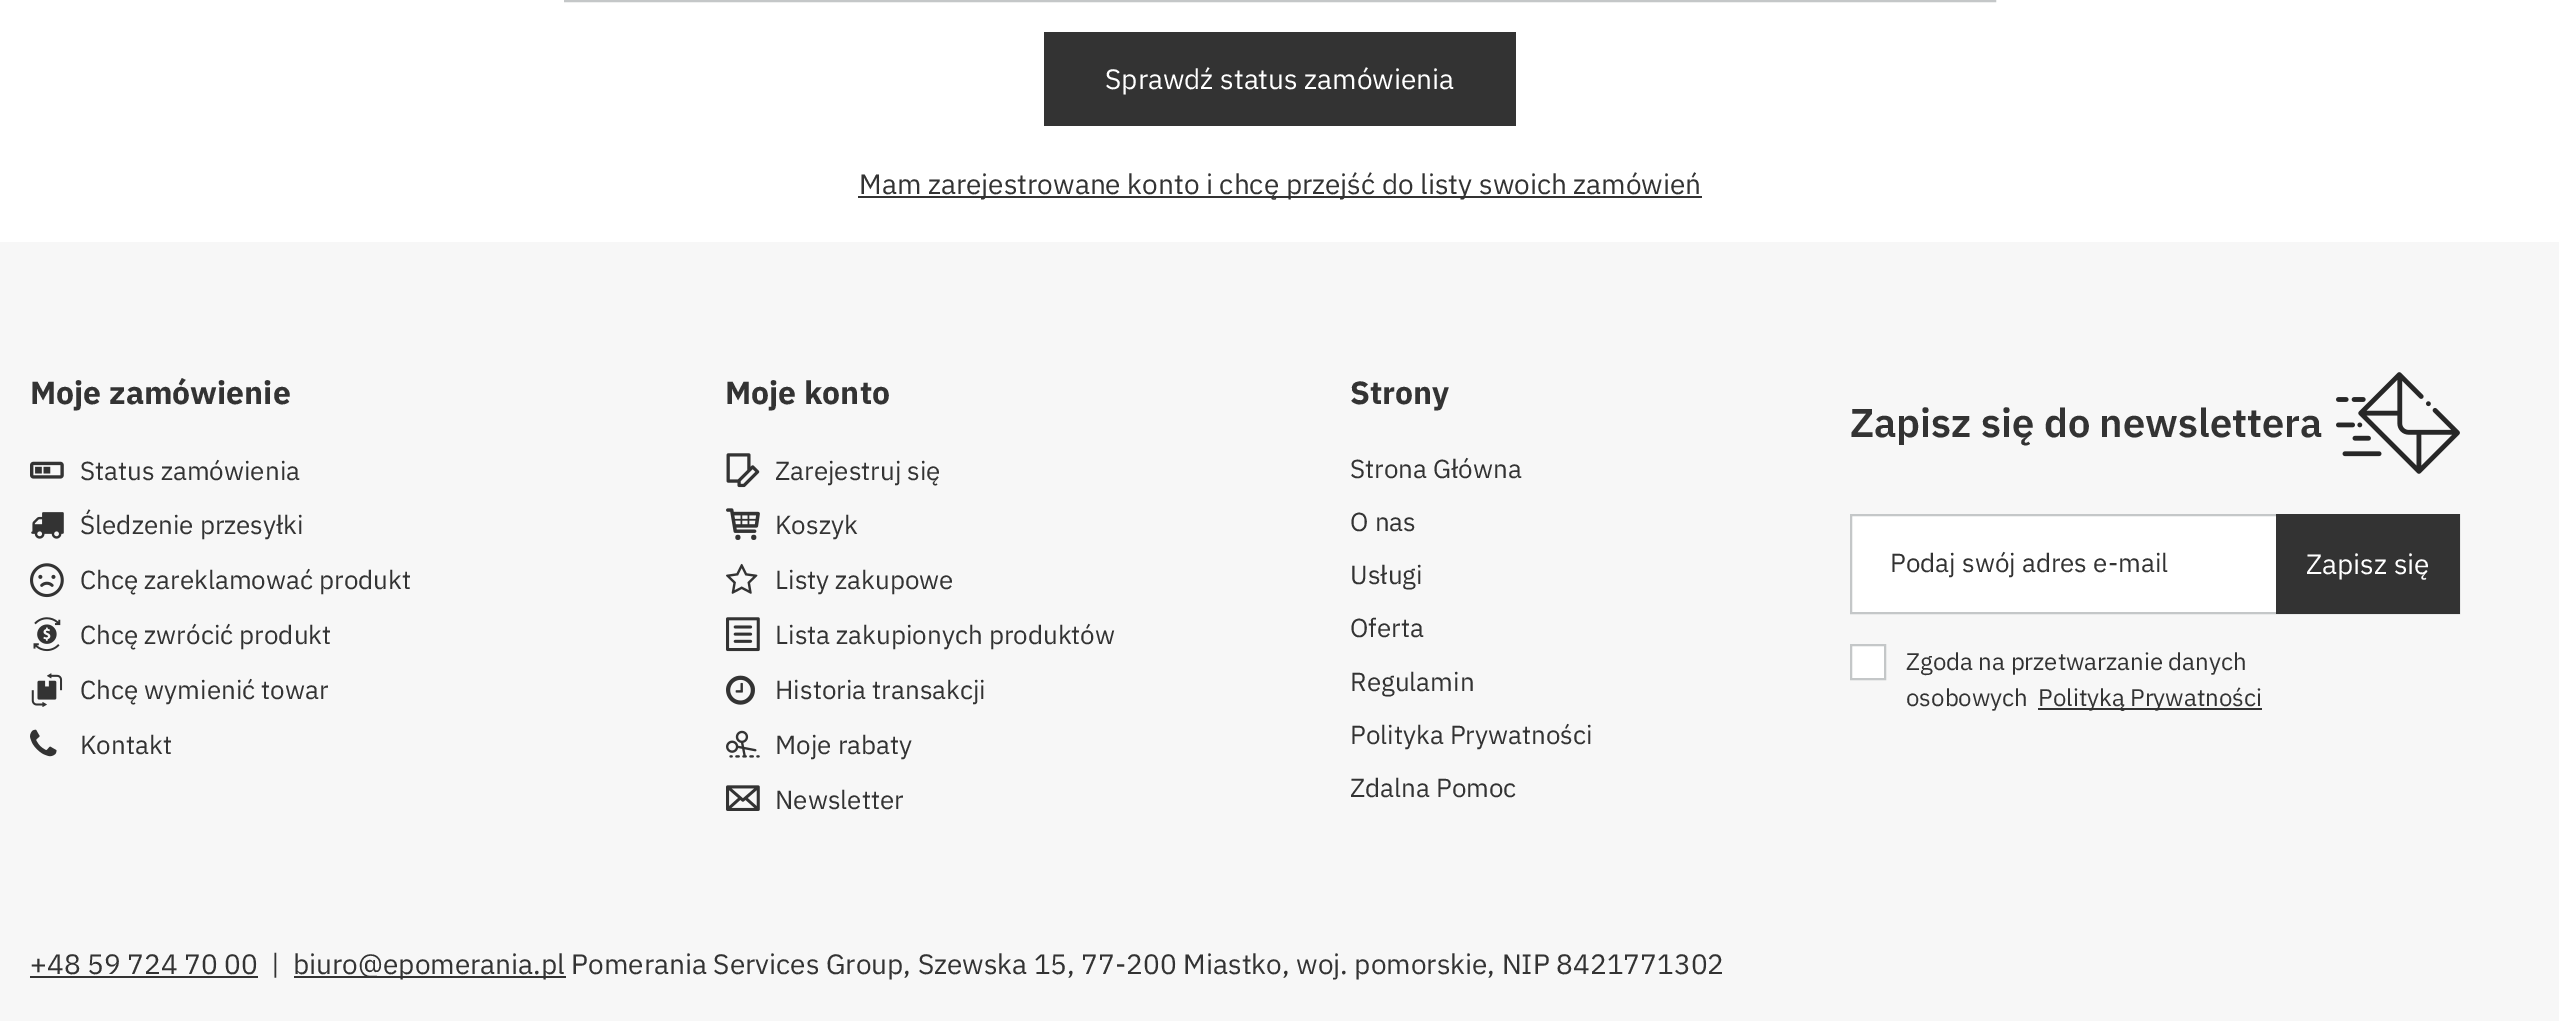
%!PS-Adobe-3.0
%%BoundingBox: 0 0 2559 1021
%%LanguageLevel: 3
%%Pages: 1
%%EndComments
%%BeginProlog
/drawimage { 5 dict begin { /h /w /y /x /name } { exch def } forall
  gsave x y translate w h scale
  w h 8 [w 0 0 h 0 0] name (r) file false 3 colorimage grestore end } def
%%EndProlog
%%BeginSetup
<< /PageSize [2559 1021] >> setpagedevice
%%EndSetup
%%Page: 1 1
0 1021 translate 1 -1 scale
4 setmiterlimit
1 setgray
0 0 2559 1021 rectfill
0.769 0.78 0.784 setrgbcolor
2 setlinewidth
565 -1 1430 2 rectstroke
0.2 setgray
1044 32 472 94 rectfill
858 196 844 2 rectfill
0.969 setgray
0 242 2559 779 rectfill
(images/1.raw) 30 461 34 18 drawimage
(images/2.raw) 31 512 33 27 drawimage
(images/3.raw) 30 563 34 35 drawimage
(images/4.raw) 33 617 28 35 drawimage
(images/5.raw) 31 673 32 34 drawimage
(images/6.raw) 30 729 27 28 drawimage
(images/7.raw) 726 453 34 35 drawimage
(images/8.raw) 726 508 34 32 drawimage
(images/9.raw) 726 563 32 31 drawimage
(images/10.raw) 726 617 34 35 drawimage
(images/11.raw) 726 675 29 30 drawimage
(images/12.raw) 726 730 34 28 drawimage
(images/13.raw) 726 785 34 26 drawimage
(images/14.raw) 2336 372 124 102 drawimage
1 setgray
1852 516 424 96 rectfill
0.769 0.78 0.784 setrgbcolor
1851 515 608 98 rectstroke
0.2 setgray
2276 514 184 100 rectfill
1 setgray
newpath 1851 645 moveto 1885 645 lineto 1885 679 lineto 1851 679 lineto closepath gsave fill grestore
0.769 0.78 0.784 setrgbcolor
stroke
0.2 setgray
2038 708 224 2 rectfill
30 976 228 2 rectfill
294 976 272 2 rectfill
/IBMPlexSans-Regular [28 0 0 -28 0 0] selectfont
1 setgray
1105 89 moveto (Sprawdź status zamówienia) show
0.2 setgray
859 194 moveto (Mam zarejestrowane konto i chcę przejść do listy swoich zamówień) show
/IBMPlexSans-Bold [32 0 0 -32 0 0] selectfont
30 404 moveto (Moje zamówienie) show
/IBMPlexSans-Regular [26 0 0 -26 0 0] selectfont
80 480 moveto (Status zamówienia) show
80 534 moveto (Śledzenie przesyłki) show
80 589 moveto (Chcę zareklamować produkt) show
80 644 moveto (Chcę zwrócić produkt) show
80 699 moveto (Chcę wymienić towar) show
80 754 moveto (Kontakt) show
/IBMPlexSans-Bold [32 0 0 -32 0 0] selectfont
725 404 moveto (Moje konto) show
/IBMPlexSans-Regular [26 0 0 -26 0 0] selectfont
775 480 moveto (Zarejestruj się) show
775 534 moveto (Koszyk) show
775 589 moveto (Listy zakupowe) show
775 644 moveto (Lista zakupionych produktów) show
775 699 moveto (Historia transakcji) show
775 754 moveto (Moje rabaty) show
775 809 moveto (Newsletter) show
/IBMPlexSans-Bold [32 0 0 -32 0 0] selectfont
1350 404 moveto (Strony) show
/IBMPlexSans-Regular [26 0 0 -26 0 0] selectfont
1350 478 moveto (Strona Główna) show
1350 531 moveto (O nas) show
1350 584 moveto (Usługi) show
1350 637 moveto (Oferta) show
1350 691 moveto (Regulamin) show
1350 744 moveto (Polityka Prywatności) show
1350 797 moveto (Zdalna Pomoc) show
/IBMPlexSans-SemiBold [40 0 0 -40 0 0] selectfont
1850 437 moveto (Zapisz się do newslettera) show
/IBMPlexSans-Regular [26 0 0 -26 0 0] selectfont
1890 572 moveto (Podaj swój adres e-mail) show
/IBMPlexSans-Regular [28 0 0 -28 0 0] selectfont
1 setgray
2306 574 moveto (Zapisz się) show
/IBMPlexSans-Regular [24 0 0 -24 0 0] selectfont
0.2 setgray
1906 670 moveto (Zgoda na przetwarzanie danych) show
1906 706 moveto (osobowych) show
2038 706 moveto (Polityką Prywatności) show
/IBMPlexSans-Regular [28 0 0 -28 0 0] selectfont
30 974 moveto (+48 59 724 70 00) show
271 974 moveto (|) show
293 974 moveto (biuro@epomerania.pl Pomerania Services Group, Szewska 15, 77-200 Miastko, woj. pomorskie, NIP 8421771302) show
showpage
%%EOF
